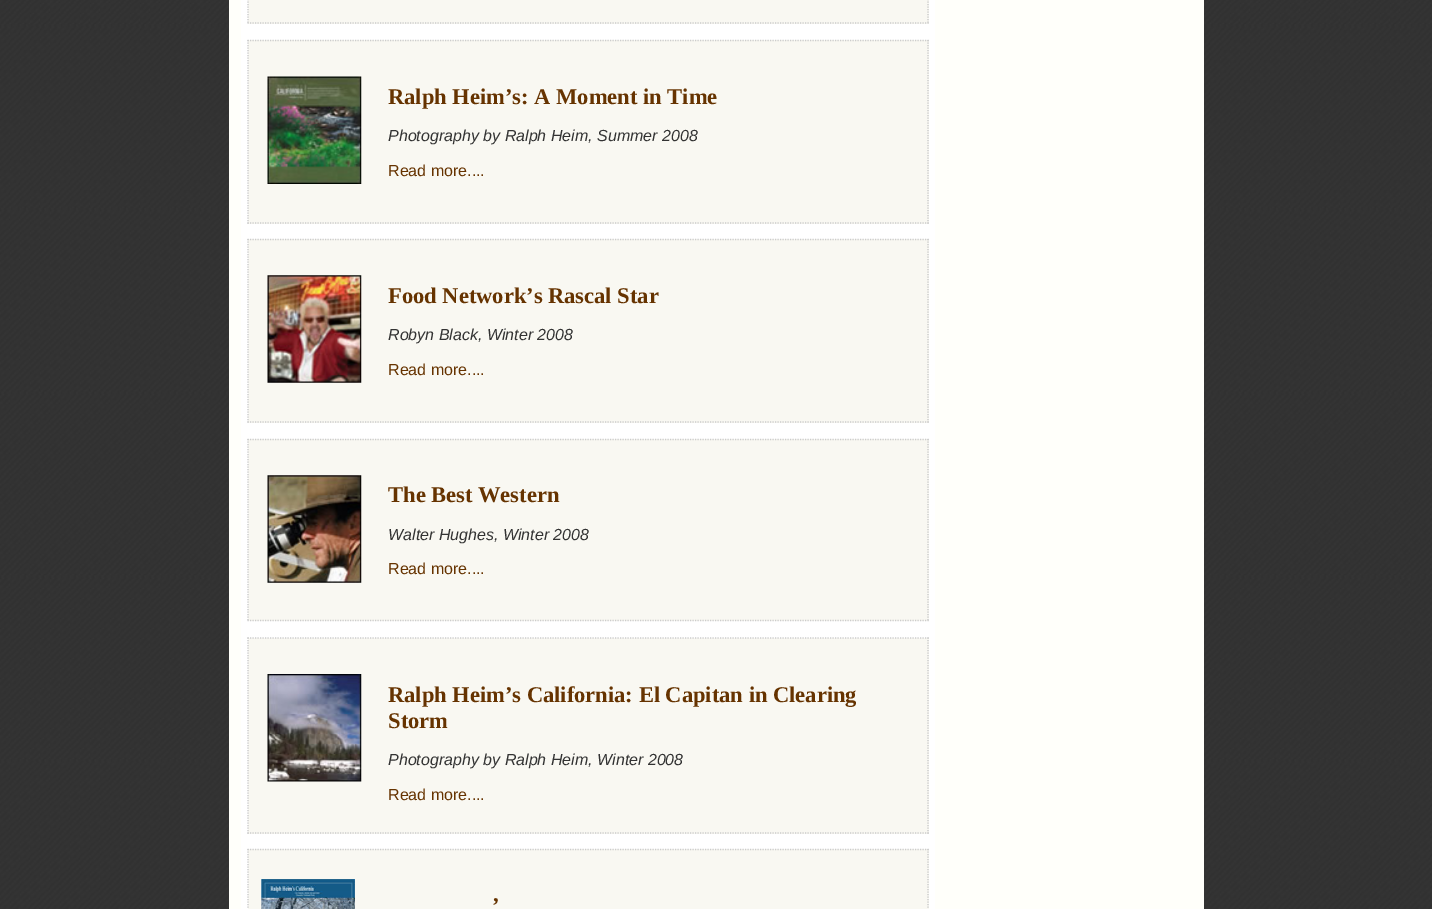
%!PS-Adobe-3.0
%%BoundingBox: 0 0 1432 909
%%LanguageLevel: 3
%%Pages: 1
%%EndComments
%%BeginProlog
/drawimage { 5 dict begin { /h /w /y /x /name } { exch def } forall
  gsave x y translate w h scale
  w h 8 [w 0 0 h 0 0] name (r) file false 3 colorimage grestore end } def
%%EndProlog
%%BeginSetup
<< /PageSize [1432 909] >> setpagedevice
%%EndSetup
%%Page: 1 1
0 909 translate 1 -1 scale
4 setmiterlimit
1 setgray
0 0 1432 909 rectfill
(images/1.raw) 0 0 1432 909 drawimage
1 1 0.98 setrgbcolor
229 0 975 909 rectfill
1 setgray
241 0 694 909 rectfill
0.976 0.973 0.949 setrgbcolor
248 0 681 24 rectfill
0.8 setgray
1.2 setlinewidth
[1.25 1.25] 0 setdash
newpath 928 -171 moveto 928 24 lineto stroke
newpath 247.5 23 moveto 929 23 lineto stroke
newpath 248 -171 moveto 248 24 lineto stroke
0.976 0.973 0.949 setrgbcolor
248 40 681 184 rectfill
0.8 setgray
newpath 247.5 40.5 moveto 929 40.5 lineto stroke
newpath 928 40 moveto 928 224 lineto stroke
newpath 247.5 223 moveto 929 223 lineto stroke
newpath 248 40 moveto 248 224 lineto stroke
(images/2.raw) 267 76 95 108 drawimage
0.976 0.973 0.949 setrgbcolor
248 239 681 184 rectfill
0.8 setgray
newpath 247.5 239.5 moveto 929 239.5 lineto stroke
newpath 928 239 moveto 928 422.5 lineto stroke
newpath 247.5 422 moveto 929 422 lineto stroke
newpath 248 239 moveto 248 422.5 lineto stroke
(images/3.raw) 267 275 95 108 drawimage
0.976 0.973 0.949 setrgbcolor
248 439 681 182 rectfill
0.8 setgray
newpath 247.5 439.5 moveto 929 439.5 lineto stroke
newpath 928 439 moveto 928 621 lineto stroke
newpath 247.5 620.5 moveto 929 620.5 lineto stroke
newpath 248 439 moveto 248 621 lineto stroke
(images/4.raw) 267 475 95 108 drawimage
0.976 0.973 0.949 setrgbcolor
248 638 681 196 rectfill
0.8 setgray
newpath 247.5 638 moveto 929 638 lineto stroke
newpath 928 637.5 moveto 928 834 lineto stroke
newpath 247.5 833 moveto 929 833 lineto stroke
newpath 248 637.5 moveto 248 834 lineto stroke
(images/5.raw) 267 674 95 108 drawimage
0.976 0.973 0.949 setrgbcolor
248 849 681 60 rectfill
0.8 setgray
newpath 247.5 849.5 moveto 929 849.5 lineto stroke
newpath 928 849 moveto 928 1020 lineto stroke
newpath 248 849 moveto 248 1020 lineto stroke
(images/6.raw) 261 879 94 30 drawimage
/LiberationSerif-Bold [22.5 0 0 -22.5 0 0] selectfont
0.4 0.2 0 setrgbcolor
388 104 moveto (Ralph Heim’s: A Moment in Time) show
/LiberationSans-Italic [16 0 0 -16 0 0] selectfont
0.2 setgray
388 141 moveto (Photography by Ralph Heim, Summer 2008) show
/LiberationSans-Regular [16 0 0 -16 0 0] selectfont
0.4 0.2 0 setrgbcolor
388 176 moveto (Read more....) show
/LiberationSerif-Bold [22.5 0 0 -22.5 0 0] selectfont
388 303 moveto (Food Network’s Rascal Star) show
/LiberationSans-Italic [16 0 0 -16 0 0] selectfont
0.2 setgray
388 340 moveto (Robyn Black, Winter 2008) show
/LiberationSans-Regular [16 0 0 -16 0 0] selectfont
0.4 0.2 0 setrgbcolor
388 375 moveto (Read more....) show
/LiberationSerif-Bold [22.5 0 0 -22.5 0 0] selectfont
388 502 moveto (The Best Western) show
/LiberationSans-Italic [16 0 0 -16 0 0] selectfont
0.2 setgray
388 540 moveto (Walter Hughes, Winter 2008) show
/LiberationSans-Regular [16 0 0 -16 0 0] selectfont
0.4 0.2 0 setrgbcolor
388 574 moveto (Read more....) show
/LiberationSerif-Bold [22.5 0 0 -22.5 0 0] selectfont
388 702 moveto (Ralph Heim’s California: El Capitan in Clearing) show
388 728 moveto (Storm) show
/LiberationSans-Italic [16 0 0 -16 0 0] selectfont
0.2 setgray
388 765 moveto (Photography by Ralph Heim, Winter 2008) show
/LiberationSans-Regular [16 0 0 -16 0 0] selectfont
0.4 0.2 0 setrgbcolor
388 800 moveto (Read more....) show
/LiberationSerif-Bold [22.5 0 0 -22.5 0 0] selectfont
492 913 moveto (’) show
showpage
%%EOF
